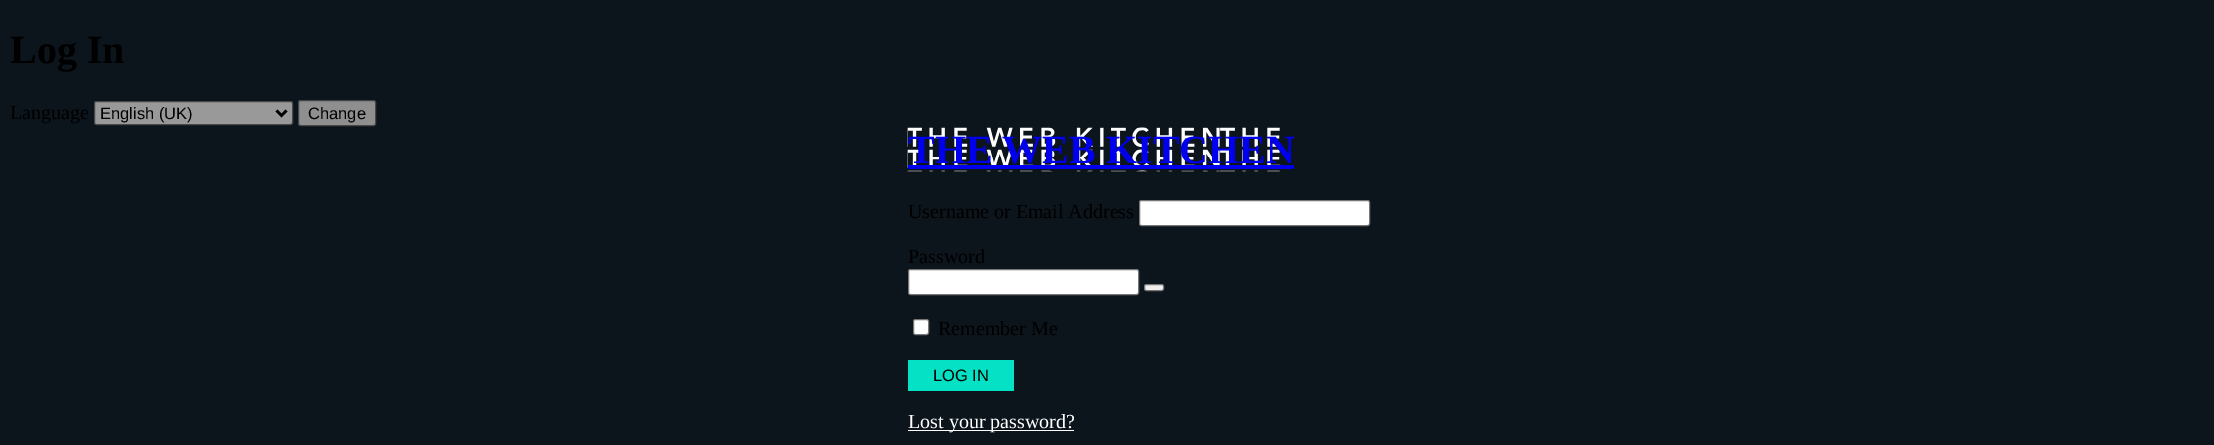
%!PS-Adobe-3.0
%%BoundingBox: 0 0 2214 445
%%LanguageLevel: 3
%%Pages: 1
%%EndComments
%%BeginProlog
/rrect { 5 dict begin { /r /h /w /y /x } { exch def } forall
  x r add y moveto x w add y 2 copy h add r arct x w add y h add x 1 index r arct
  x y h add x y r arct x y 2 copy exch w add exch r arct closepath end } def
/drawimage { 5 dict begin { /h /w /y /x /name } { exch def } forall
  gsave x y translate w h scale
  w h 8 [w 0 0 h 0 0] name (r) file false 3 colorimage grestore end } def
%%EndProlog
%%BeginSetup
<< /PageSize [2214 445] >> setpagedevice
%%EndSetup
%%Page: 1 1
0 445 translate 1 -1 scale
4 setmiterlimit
0.047 0.078 0.11 setrgbcolor
0 0 2214 445 rectfill
0.6 setgray
94.5 101.5 198 23 2 rrect gsave fill grestore
0.278 setgray
stroke
0 setgray
2.5 setlinewidth
newpath 276.5 110.5 moveto 281.5 115.5 lineto 286.5 110.5 lineto stroke
0.561 setgray
298.5 100.5 77 25 2 rrect gsave fill grestore
0.278 setgray
1 setlinewidth
stroke
(images/1.raw) 907 127 374 45 drawimage
0 0 0.933 setrgbcolor
908 165 386 4 rectfill
1 setgray
1139.5 200.5 230 25 2 rrect gsave fill grestore
0.463 setgray
stroke
1 setgray
908.5 269.5 230 25 2 rrect gsave fill grestore
0.463 setgray
stroke
0.937 setgray
1144.5 284.5 19 6 2 rrect gsave fill grestore
0.463 setgray
stroke
1 setgray
913.5 319.5 15 15 2 rrect gsave fill grestore
0.463 setgray
stroke
0.02 0.882 0.769 setrgbcolor
908 360 106 31 rectfill
1 setgray
908 430 166 1 rectfill
/LiberationSerif-Bold [40 0 0 -40 0 0] selectfont
0 setgray
10 63 moveto (Log In) show
/LiberationSerif-Regular [20 0 0 -20 0 0] selectfont
10 119 moveto (Language) show
/LiberationSans-Regular [16.5 0 0 -16.5 0 0] selectfont
100 119 moveto (English \(UK\)) show
308 119 moveto (Change) show
/LiberationSerif-Bold [40 0 0 -40 0 0] selectfont
0 0 0.933 setrgbcolor
908 163 moveto (THE WEB KITCHEN) show
/LiberationSerif-Regular [20 0 0 -20 0 0] selectfont
0 setgray
908 218 moveto (Username or Email Address) show
908 263 moveto (Password) show
938 335 moveto (Remember Me) show
/LiberationSans-Regular [16.5 0 0 -16.5 0 0] selectfont
933 381 moveto (LOG IN) show
/LiberationSerif-Regular [20 0 0 -20 0 0] selectfont
1 setgray
908 428 moveto (Lost your password?) show
showpage
%%EOF
